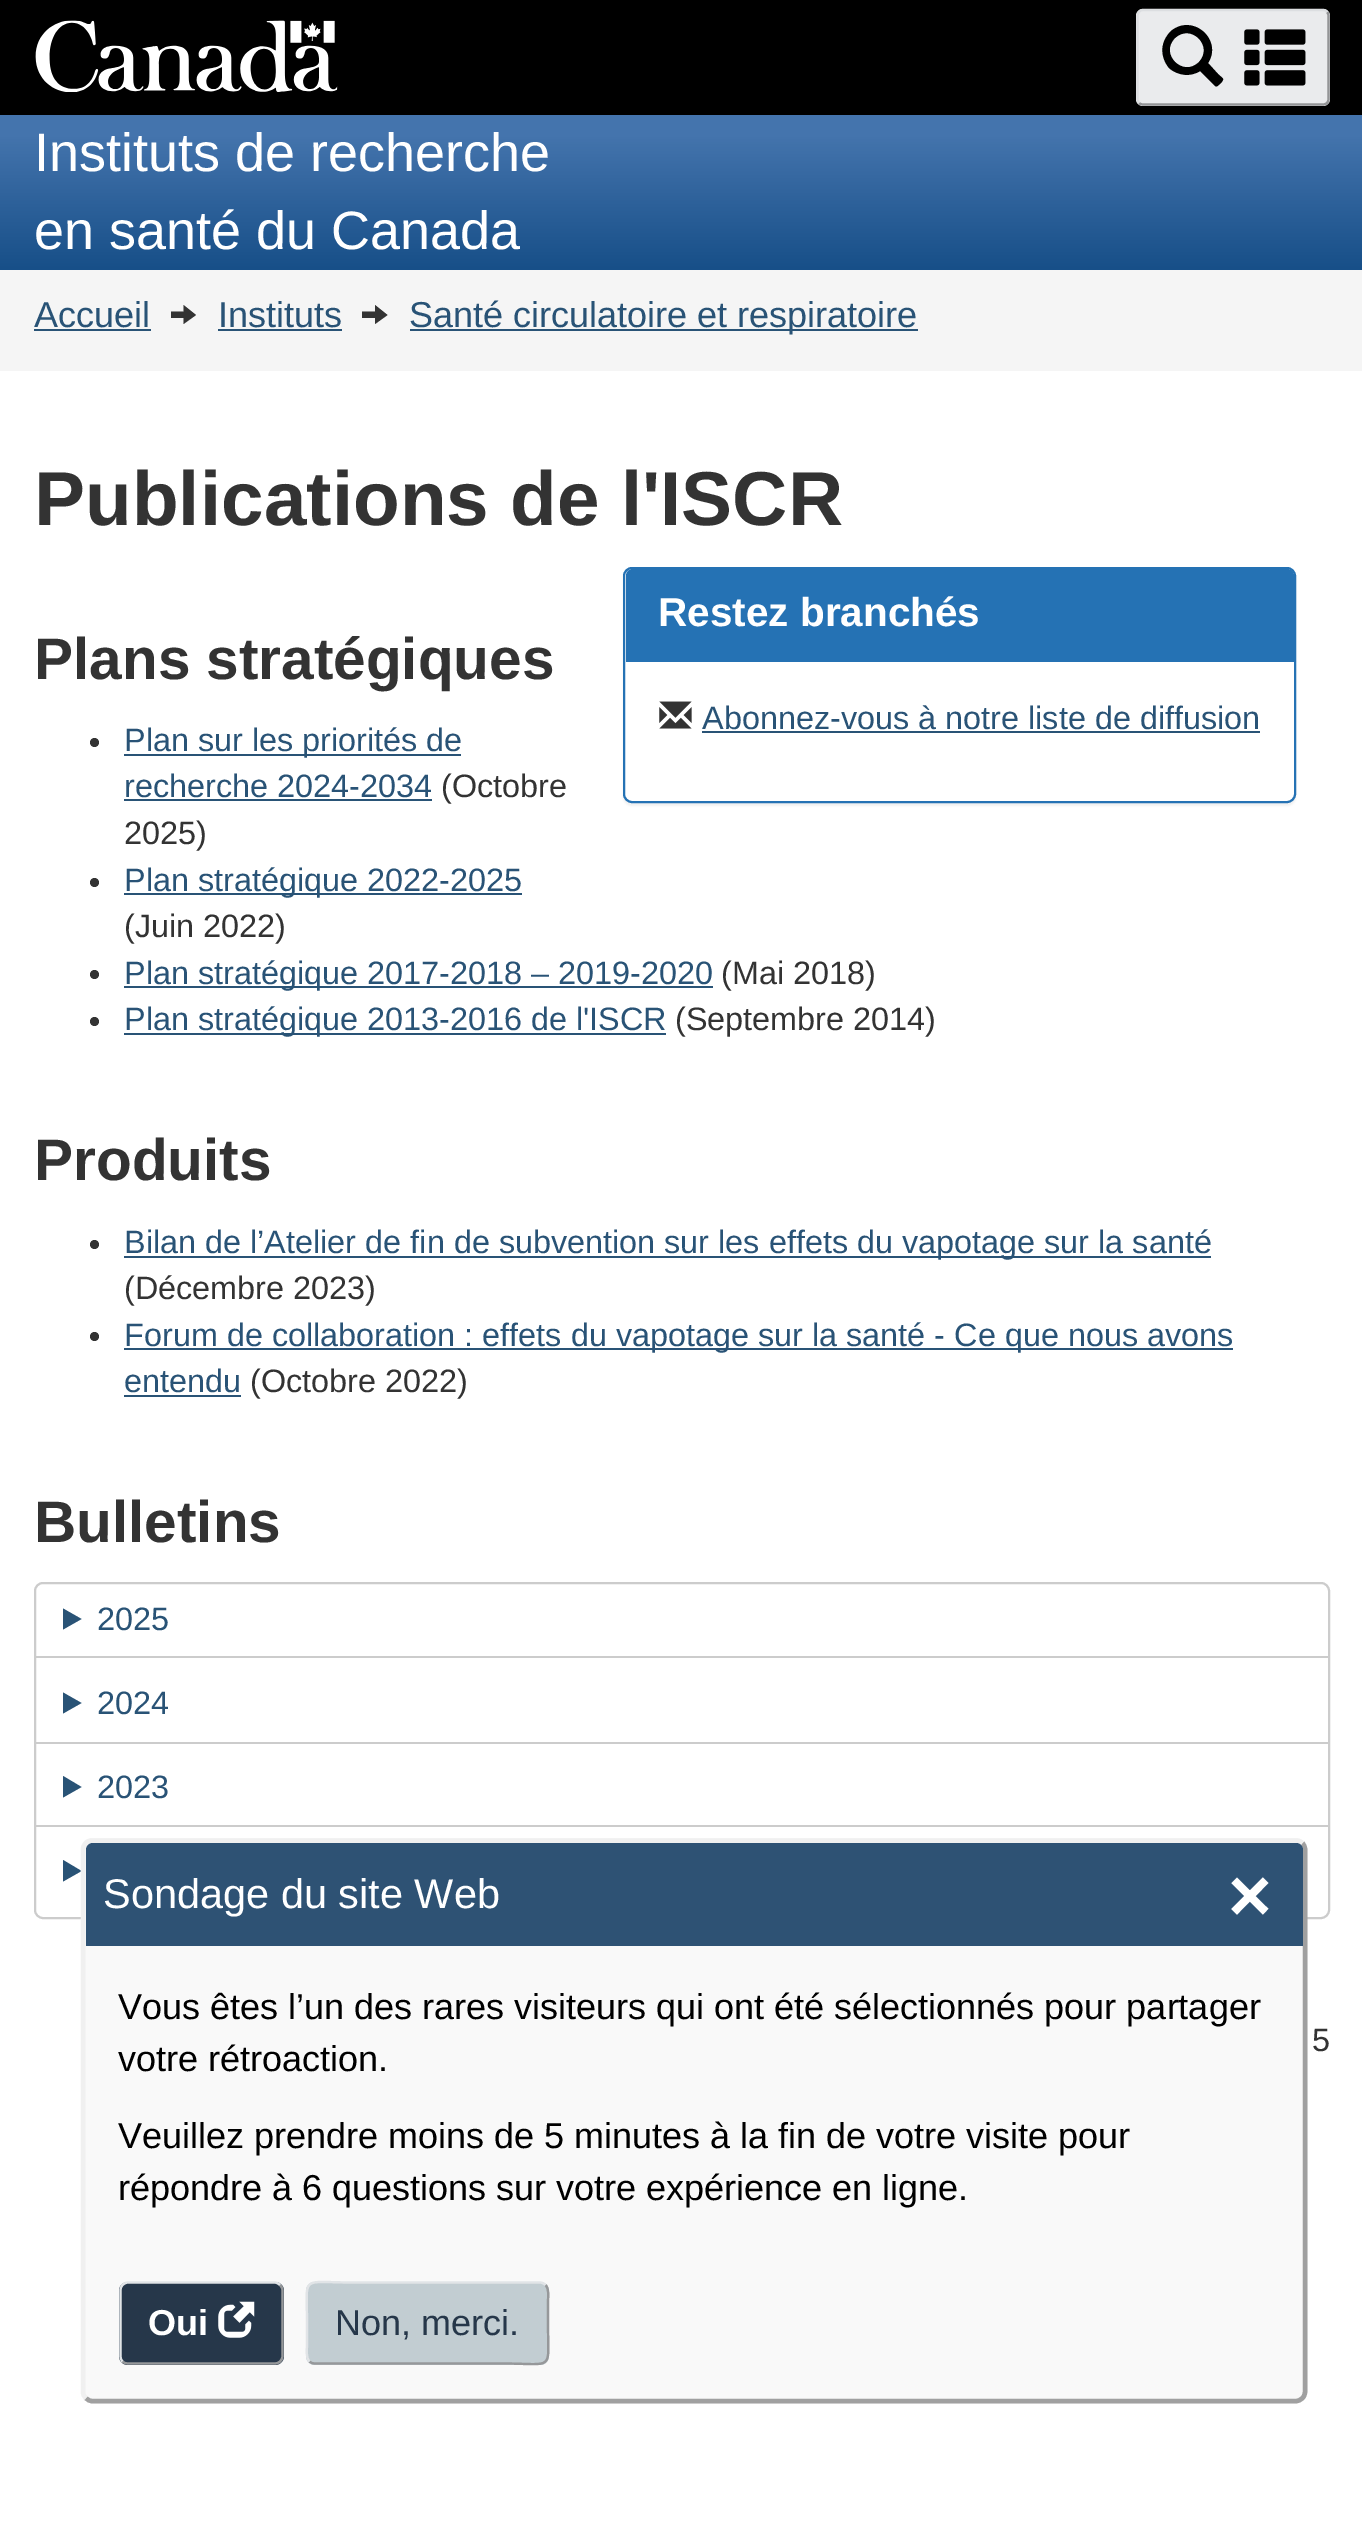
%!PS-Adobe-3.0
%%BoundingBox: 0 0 1362 2528
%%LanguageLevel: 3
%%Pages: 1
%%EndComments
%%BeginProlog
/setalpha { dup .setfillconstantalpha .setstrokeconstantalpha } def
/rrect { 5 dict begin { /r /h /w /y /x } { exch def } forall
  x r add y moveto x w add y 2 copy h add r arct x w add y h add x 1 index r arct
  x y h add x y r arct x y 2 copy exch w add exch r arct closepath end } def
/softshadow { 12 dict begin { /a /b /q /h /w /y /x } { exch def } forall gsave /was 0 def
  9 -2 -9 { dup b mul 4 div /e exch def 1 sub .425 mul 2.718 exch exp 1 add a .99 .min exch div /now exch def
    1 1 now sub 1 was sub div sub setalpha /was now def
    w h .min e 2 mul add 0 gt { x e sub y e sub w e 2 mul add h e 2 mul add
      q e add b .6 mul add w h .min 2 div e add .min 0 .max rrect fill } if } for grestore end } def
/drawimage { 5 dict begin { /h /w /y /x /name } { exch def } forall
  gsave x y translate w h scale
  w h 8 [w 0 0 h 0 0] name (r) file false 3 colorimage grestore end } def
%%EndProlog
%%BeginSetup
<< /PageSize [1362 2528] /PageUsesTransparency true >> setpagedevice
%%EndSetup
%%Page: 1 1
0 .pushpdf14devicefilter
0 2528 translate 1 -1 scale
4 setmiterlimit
1 setgray
0 0 1362 2528 rectfill
gsave newpath 0 115 moveto 1362 115 lineto 1362 270 lineto 0 270 lineto closepath clip newpath
<< /ShadingType 2 /ColorSpace /DeviceRGB /Coords [682 0 682 270] /Extend [true true] /Function << /FunctionType 3 /Domain [0 1] /Functions [<< /FunctionType 2 /Domain [0 1] /C0 [0.267 0.455 0.678] /C1 [0.267 0.455 0.678] /N 1 >> << /FunctionType 2 /Domain [0 1] /C0 [0.267 0.455 0.678] /C1 [0.09 0.31 0.533] /N 1 >>] /Bounds [0.5] /Encode [0 1 0 1] >> >> shfill grestore
0 setgray
0 0 1362 115 rectfill
0.918 0.922 0.929 setrgbcolor
1136 9 194 97 7 rrect fill
0.576 0.58 0.588 setrgbcolor
2.2 setlinewidth
newpath 1327 12 moveto 1328 13 1328.5 14.5 1328.5 15.5 curveto 1328.5 99 lineto 1328.5 100.5 1328 102 1327 103 curveto 1326 104 1324.5 104.5 1323 104.5 curveto 1143 104.5 lineto 1141.5 104.5 1140 104 1139 103 curveto stroke
0.863 0.871 0.882 setrgbcolor
newpath 1139 103 moveto 1138 102 1137.5 100.5 1137.5 99 curveto 1137.5 16 lineto 1137.5 14.5 1138 13 1139 12 curveto 1140 10.5 1141.5 10 1143 10 curveto 1323 10 lineto 1324.5 10 1326 10.5 1327 12 curveto stroke
0 setgray
newpath 1169 68 moveto 1164 62 1161 53 1163 45 curveto 1164 40 1167 35 1171 31 curveto 1193 13 1223 40 1208 63 curveto 1218 74 lineto 1223 79 1225 78 1221 83 curveto 1216 87 1217 88 1213 84 curveto 1200 71 lineto 1191 77 1178 76 1169 68 curveto closepath 1175 38 moveto 1159 54 1183 78 1199 62 curveto 1214 46 1191 23 1175 38 curveto closepath fill
(images/1.raw) 1244 29 62 57 drawimage
(images/2.raw) 35 20 303 72 drawimage
0.961 setgray
0 270 1362 101 rectfill
0.161 0.325 0.463 setrgbcolor
34 329 117 2 rectfill
0.2 setgray
newpath 171 318 moveto 171 311.5 lineto 183.5 311.5 lineto 183.5 305 lineto 196 315 lineto 183.5 324 lineto 183.5 318 lineto closepath fill
0.161 0.325 0.463 setrgbcolor
218 329 124 2 rectfill
0.2 setgray
newpath 362 318 moveto 362 311.5 lineto 375 311.5 lineto 375 305 lineto 387.5 315 lineto 375 324 lineto 375 318 lineto closepath fill
0.161 0.325 0.463 setrgbcolor
410 329 508 2 rectfill
0 setgray
623 569 673 237 9 1 0.05 softshadow
1 setgray
624 568 671 234 8 rrect gsave fill grestore
0.145 0.447 0.706 setrgbcolor
2 setlinewidth
stroke
newpath 633 569 moveto 1287 569 lineto 1291 569 1294 572 1294 576 curveto 1294 662 lineto 626 662 lineto 626 576 lineto 626 572 629 569 633 569 curveto closepath fill
(images/3.raw) 659 701 33 28 drawimage
0.161 0.325 0.463 setrgbcolor
702 731 558 2 rectfill
0.2 setgray
newpath 94.5 742.5 4.5 0 360 arc closepath fill
0.161 0.325 0.463 setrgbcolor
124 754 337 2 rectfill
124 799 308 2 rectfill
0.2 setgray
newpath 94.5 882.5 4.5 0 360 arc closepath fill
0.161 0.325 0.463 setrgbcolor
124 893 398 2 rectfill
0.2 setgray
newpath 94.5 974.5 4.5 0 360 arc closepath fill
0.161 0.325 0.463 setrgbcolor
124 986 589 2 rectfill
0.2 setgray
newpath 94.5 1021.5 4.5 0 360 arc closepath fill
0.161 0.325 0.463 setrgbcolor
124 1033 542 2 rectfill
0.2 setgray
newpath 94.5 1244.5 4.5 0 360 arc closepath fill
0.161 0.325 0.463 setrgbcolor
124 1256 1087 2 rectfill
0.2 setgray
newpath 94.5 1336.5 4.5 0 360 arc closepath fill
0.161 0.325 0.463 setrgbcolor
124 1348 1109 2 rectfill
124 1395 117 2 rectfill
0.8 setgray
35 1583 1294 335 8 rrect stroke
36 1656 1292 2 rectfill
0.161 0.325 0.463 setrgbcolor
newpath 63 1608.5 moveto 81.5 1619 lineto 63 1629.5 lineto closepath fill
0.8 setgray
36 1742 1292 2 rectfill
0.161 0.325 0.463 setrgbcolor
newpath 63 1692.5 moveto 81.5 1703 lineto 63 1713.5 lineto closepath fill
0.8 setgray
36 1825 1292 2 rectfill
0.161 0.325 0.463 setrgbcolor
newpath 63 1776 moveto 81.5 1787 lineto 63 1797.5 lineto closepath fill
newpath 63 1860 moveto 81.5 1871 lineto 63 1881.5 lineto closepath fill
0.976 setgray
81 1838 1226 565 11 rrect fill
0.627 setgray
4.5 setlinewidth
newpath 1302.5 1843 moveto 1304 1845 1305 1847 1305 1849.5 curveto 1305 2392 lineto 1305 2394 1304 2396.5 1302.5 2398 curveto 1300.5 2400 1298.5 2401 1296 2401 curveto 92 2401 lineto 90 2401 87.5 2400 86 2398 curveto stroke
0.941 setgray
newpath 86 2398 moveto 84 2396.5 83 2394 83 2392 curveto 83 1849.5 lineto 83 1847 84 1845 86 1843 curveto 87.5 1841.5 90 1840.5 92 1840.5 curveto 1296 1840.5 lineto 1298.5 1840.5 1300.5 1841.5 1302.5 1843 curveto stroke
0.18 0.322 0.455 setrgbcolor
newpath 93 1843 moveto 1296 1843 lineto 1300 1843 1303 1846 1303 1850 curveto 1303 1946 lineto 86 1946 lineto 86 1850 lineto 86 1846 89 1843 93 1843 curveto closepath fill
0.149 0.216 0.29 setrgbcolor
119 2282 165 83 9 rrect fill
0.588 0.596 0.604 setrgbcolor
2.2 setlinewidth
newpath 280 2285 moveto 281.5 2286.5 282.5 2288.5 282.5 2290.5 curveto 282.5 2356 lineto 282.5 2358 281.5 2360 280 2361.5 curveto 278.5 2363 276.5 2363.5 274.5 2363.5 curveto 128 2363.5 lineto 126 2363.5 124 2363 122.5 2361.5 curveto stroke
0.882 0.894 0.906 setrgbcolor
newpath 122.5 2361.5 moveto 121 2360 120.5 2358 120.5 2356 curveto 120.5 2290.5 lineto 120.5 2288.5 121 2286.5 122.5 2285 curveto 124 2283.5 126 2282.5 128 2282.5 curveto 274.5 2282.5 lineto 276.5 2282.5 278.5 2283.5 280 2285 curveto stroke
(images/4.raw) 218 2301 37 37 drawimage
0.761 0.804 0.824 setrgbcolor
306 2282 243 83 9 rrect fill
0.588 0.596 0.604 setrgbcolor
newpath 545.5 2285 moveto 549.5 2289 548 2297 548 2301.5 curveto 548 2323 lineto 548 2372.5 555.5 2363.5 502.5 2363.5 curveto 315 2363.5 lineto 313 2363.5 311 2363 309.5 2361.5 curveto stroke
0.882 0.894 0.906 setrgbcolor
newpath 309.5 2361.5 moveto 305.5 2357.5 307 2349 307 2345 curveto 307 2323 lineto 307 2274 299.5 2282.5 352.5 2282.5 curveto 540 2282.5 lineto 542 2282.5 544 2283.5 545.5 2285 curveto stroke
/LiberationSans-Regular [54 0 0 -54 0 0] selectfont
1 setgray
34 171 moveto (Instituts de recherche) show
34 249 moveto (en santé du Canada) show
/LiberationSans-Regular [36 0 0 -36 0 0] selectfont
0.161 0.325 0.463 setrgbcolor
34 327 moveto (Accueil) show
218 327 moveto (Instituts) show
409 327 moveto (Santé circulatoire et respiratoire) show
/LiberationSans-Bold [76.5 0 0 -76.5 0 0] selectfont
0.2 setgray
34 525 moveto (Publications de l'ISCR) show
/LiberationSans-Bold [58.5 0 0 -58.5 0 0] selectfont
34 679 moveto (Plans stratégiques) show
/LiberationSans-Bold [40.5 0 0 -40.5 0 0] selectfont
1 setgray
658 626 moveto (Restez branchés) show
/LiberationSans-Regular [32.4 0 0 -32.4 0 0] selectfont
0.161 0.325 0.463 setrgbcolor
702 729 moveto (Abonnez-vous à notre liste de diffusion) show
124 751 moveto (Plan sur les priorités de) show
124 797 moveto (recherche 2024-2034) show
0.2 setgray
441 797 moveto (\(Octobre) show
124 844 moveto (2025\)) show
0.161 0.325 0.463 setrgbcolor
124 891 moveto (Plan stratégique 2022-2025) show
0.2 setgray
124 937 moveto (\(Juin 2022\)) show
0.161 0.325 0.463 setrgbcolor
124 984 moveto (Plan stratégique 2017-2018 – 2019-2020) show
0.2 setgray
721 984 moveto (\(Mai 2018\)) show
0.161 0.325 0.463 setrgbcolor
124 1030 moveto (Plan stratégique 2013-2016 de l'ISCR) show
0.2 setgray
675 1030 moveto (\(Septembre 2014\)) show
/LiberationSans-Bold [58.5 0 0 -58.5 0 0] selectfont
34 1180 moveto (Produits) show
/LiberationSans-Regular [32.4 0 0 -32.4 0 0] selectfont
0.161 0.325 0.463 setrgbcolor
124 1253 moveto (Bilan de l’Atelier de fin de subvention sur les effets du vapotage sur la santé) show
0.2 setgray
124 1299 moveto (\(Décembre 2023\)) show
0.161 0.325 0.463 setrgbcolor
124 1346 moveto (Forum de collaboration : effets du vapotage sur la santé - Ce que nous avons) show
124 1392 moveto (entendu) show
0.2 setgray
250 1392 moveto (\(Octobre 2022\)) show
/LiberationSans-Bold [58.5 0 0 -58.5 0 0] selectfont
34 1542 moveto (Bulletins) show
/LiberationSans-Regular [32.4 0 0 -32.4 0 0] selectfont
0.161 0.325 0.463 setrgbcolor
97 1630 moveto (2025) show
97 1714 moveto (2024) show
97 1798 moveto (2023) show
0.2 setgray
1312 2051 moveto (5) show
/LiberationSans-Regular [41.5 0 0 -41.5 0 0] selectfont
1 setgray
103 1908 moveto (Sondage du site Web) show
/LiberationSans-Bold [75 0 0 -75 0 0] selectfont
1228 1921 moveto (×) show
/LiberationSans-Regular [36 0 0 -36 0 0] selectfont
0 setgray
118 2019 moveto (Vous êtes l’un des rares visiteurs qui ont été sélectionnés pour partager) show
118 2071 moveto (votre rétroaction.) show
118 2148 moveto (Veuillez prendre moins de 5 minutes à la fin de votre visite pour) show
118 2200 moveto (répondre à 6 questions sur votre expérience en ligne.) show
/LiberationSans-Bold [36 0 0 -36 0 0] selectfont
1 setgray
148 2335 moveto (Oui) show
/LiberationSans-Regular [36 0 0 -36 0 0] selectfont
0.149 0.216 0.29 setrgbcolor
335 2335 moveto (Non, merci.) show
.poppdf14devicefilter showpage
%%EOF
